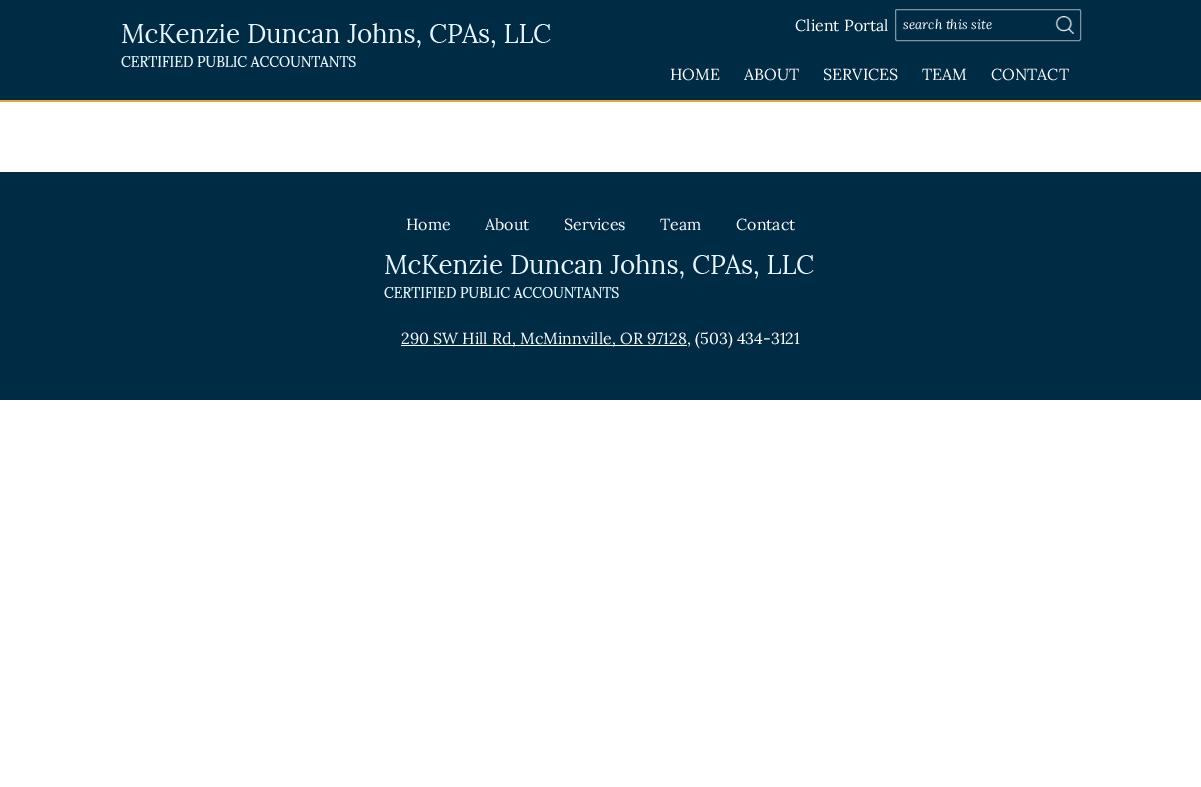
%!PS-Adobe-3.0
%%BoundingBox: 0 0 1201 787
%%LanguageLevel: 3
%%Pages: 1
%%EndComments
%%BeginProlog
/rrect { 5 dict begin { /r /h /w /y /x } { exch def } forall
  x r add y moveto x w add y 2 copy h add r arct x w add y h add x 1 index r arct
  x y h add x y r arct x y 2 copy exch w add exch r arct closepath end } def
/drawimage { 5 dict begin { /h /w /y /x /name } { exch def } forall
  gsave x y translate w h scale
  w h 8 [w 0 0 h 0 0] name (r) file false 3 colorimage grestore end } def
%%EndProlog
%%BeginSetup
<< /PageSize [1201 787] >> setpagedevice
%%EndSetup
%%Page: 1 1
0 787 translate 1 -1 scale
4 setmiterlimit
1 setgray
0 0 1201 787 rectfill
0 0.169 0.271 setrgbcolor
0 0 1201 100 rectfill
0.831 0.686 0.216 setrgbcolor
0 100 1201 2 rectfill
(images/1.raw) 121 23 430 44 drawimage
0.502 0.584 0.635 setrgbcolor
895.5 9.5 185 31 1.5 rrect stroke
(images/2.raw) 1055 16 19 18 drawimage
0 0.169 0.271 setrgbcolor
0 172 1201 228 rectfill
(images/1.raw) 384 254 430 44 drawimage
1 setgray
401 345 286 1 rectfill
/Lora-Regular [16 0 0 -16 0 0] selectfont
795 31 moveto (Client Portal) show
/Lora-Italic [13.25 0 0 -13.25 0 0] selectfont
903 29 moveto (search this site) show
/Lora-Regular [16 0 0 -16 0 0] selectfont
670 80 moveto (HOME) show
744 80 moveto (ABOUT) show
823 80 moveto (SERVICES) show
922 80 moveto (TEAM) show
991 80 moveto (CONTACT) show
406 230 moveto (Home) show
485 230 moveto (About) show
564 230 moveto (Services) show
660 230 moveto (Team) show
736 230 moveto (Contact) show
401 344 moveto (290 SW Hill Rd, McMinnville, OR 97128, \(503\) 434-3121) show
showpage
%%EOF
